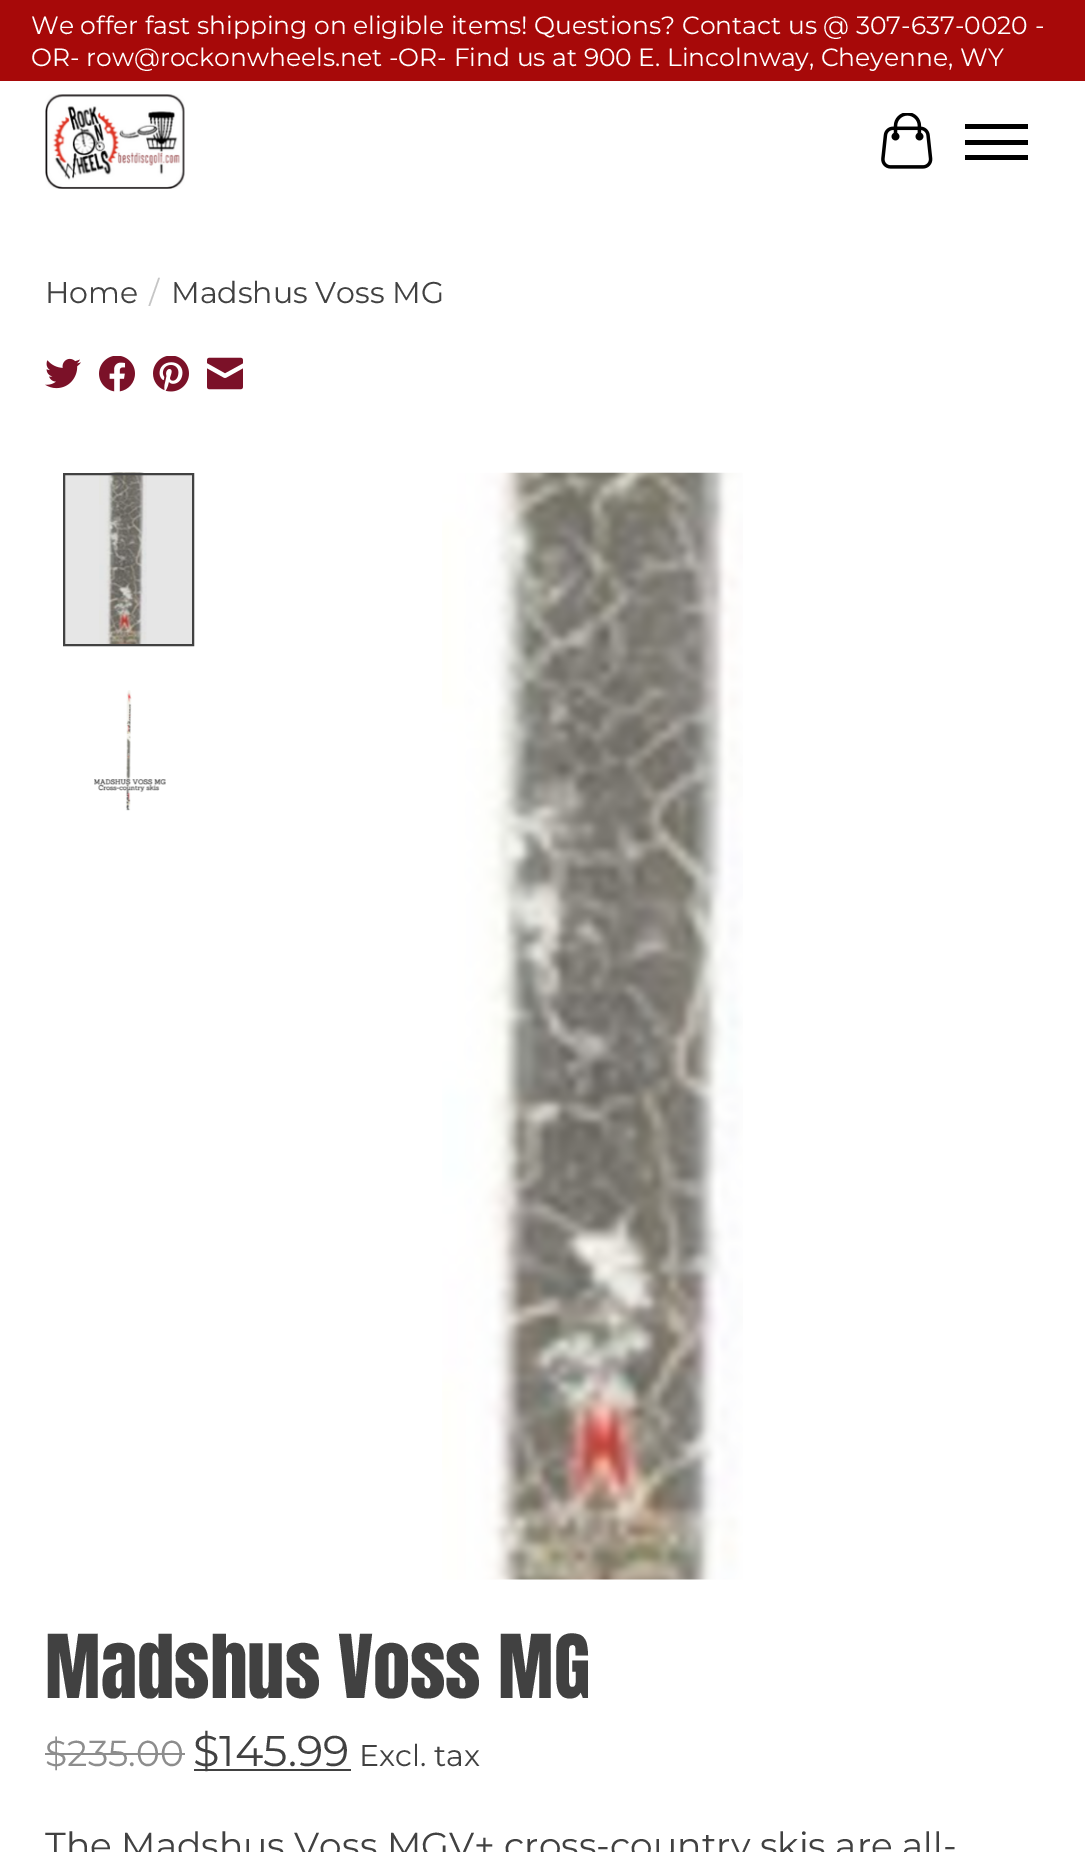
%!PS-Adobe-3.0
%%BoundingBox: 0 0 1085 1852
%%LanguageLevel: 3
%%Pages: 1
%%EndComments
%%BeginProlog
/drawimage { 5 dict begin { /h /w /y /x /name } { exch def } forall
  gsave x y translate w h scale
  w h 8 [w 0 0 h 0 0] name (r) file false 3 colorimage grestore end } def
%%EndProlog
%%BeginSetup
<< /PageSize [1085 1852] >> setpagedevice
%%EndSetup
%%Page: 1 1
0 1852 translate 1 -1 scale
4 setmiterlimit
1 setgray
0 0 1085 1852 rectfill
0.902 setgray
65 475 127 169 rectfill
0.655 0.035 0.035 setrgbcolor
0 0 1085 81 rectfill
(images/1.raw) 45 94 140 95 drawimage
(images/2.raw) 881 113 52 56 drawimage
0 setgray
965 140 63 5 rectfill
965 124 63 5 rectfill
965 155 63 5 rectfill
(images/3.raw) 45 358 36 31 drawimage
(images/4.raw) 99 356 36 36 drawimage
(images/5.raw) 153 356 36 36 drawimage
(images/6.raw) 207 357 36 33 drawimage
(images/7.raw) 99 472 48 172 drawimage
0.255 setgray
2 setlinewidth
64 474 129 171 rectstroke
(images/8.raw) 94 690 72 121 drawimage
(images/9.raw) 442 472 301 1108 drawimage
0.553 setgray
45 1753 140 2 rectfill
0.255 setgray
194 1769 157 2 rectfill
/Montserrat-Regular [25 0 0 -25 0 0] selectfont
1 setgray
31 34 moveto (We offer fast shipping on eligible items! Questions? Contact us @ 307-637-0020 -) show
31 66 moveto (OR- row@rockonwheels.net -OR- Find us at 900 E. Lincolnway, Cheyenne, WY) show
/Montserrat-Regular [30 0 0 -30 0 0] selectfont
0.255 setgray
45 303 moveto (Home) show
0.776 setgray
149 303 moveto (/) show
0.255 setgray
171 303 moveto (Madshus Voss MG) show
/Anton-Regular [74.75 0 0 -74.75 0 0] selectfont
45 1698 moveto (Madshus Voss MG) show
/Montserrat-Regular [36 0 0 -36 0 0] selectfont
0.553 setgray
45 1766 moveto ($235.00) show
/Montserrat-Regular [43 0 0 -43 0 0] selectfont
0.255 setgray
193 1766 moveto ($145.99) show
/Montserrat-Regular [30 0 0 -30 0 0] selectfont
359 1766 moveto (Excl. tax) show
/Montserrat-Regular [36 0 0 -36 0 0] selectfont
45 1858 moveto (The Madshus Voss MGV+ cross-country skis are all-) show
showpage
%%EOF
